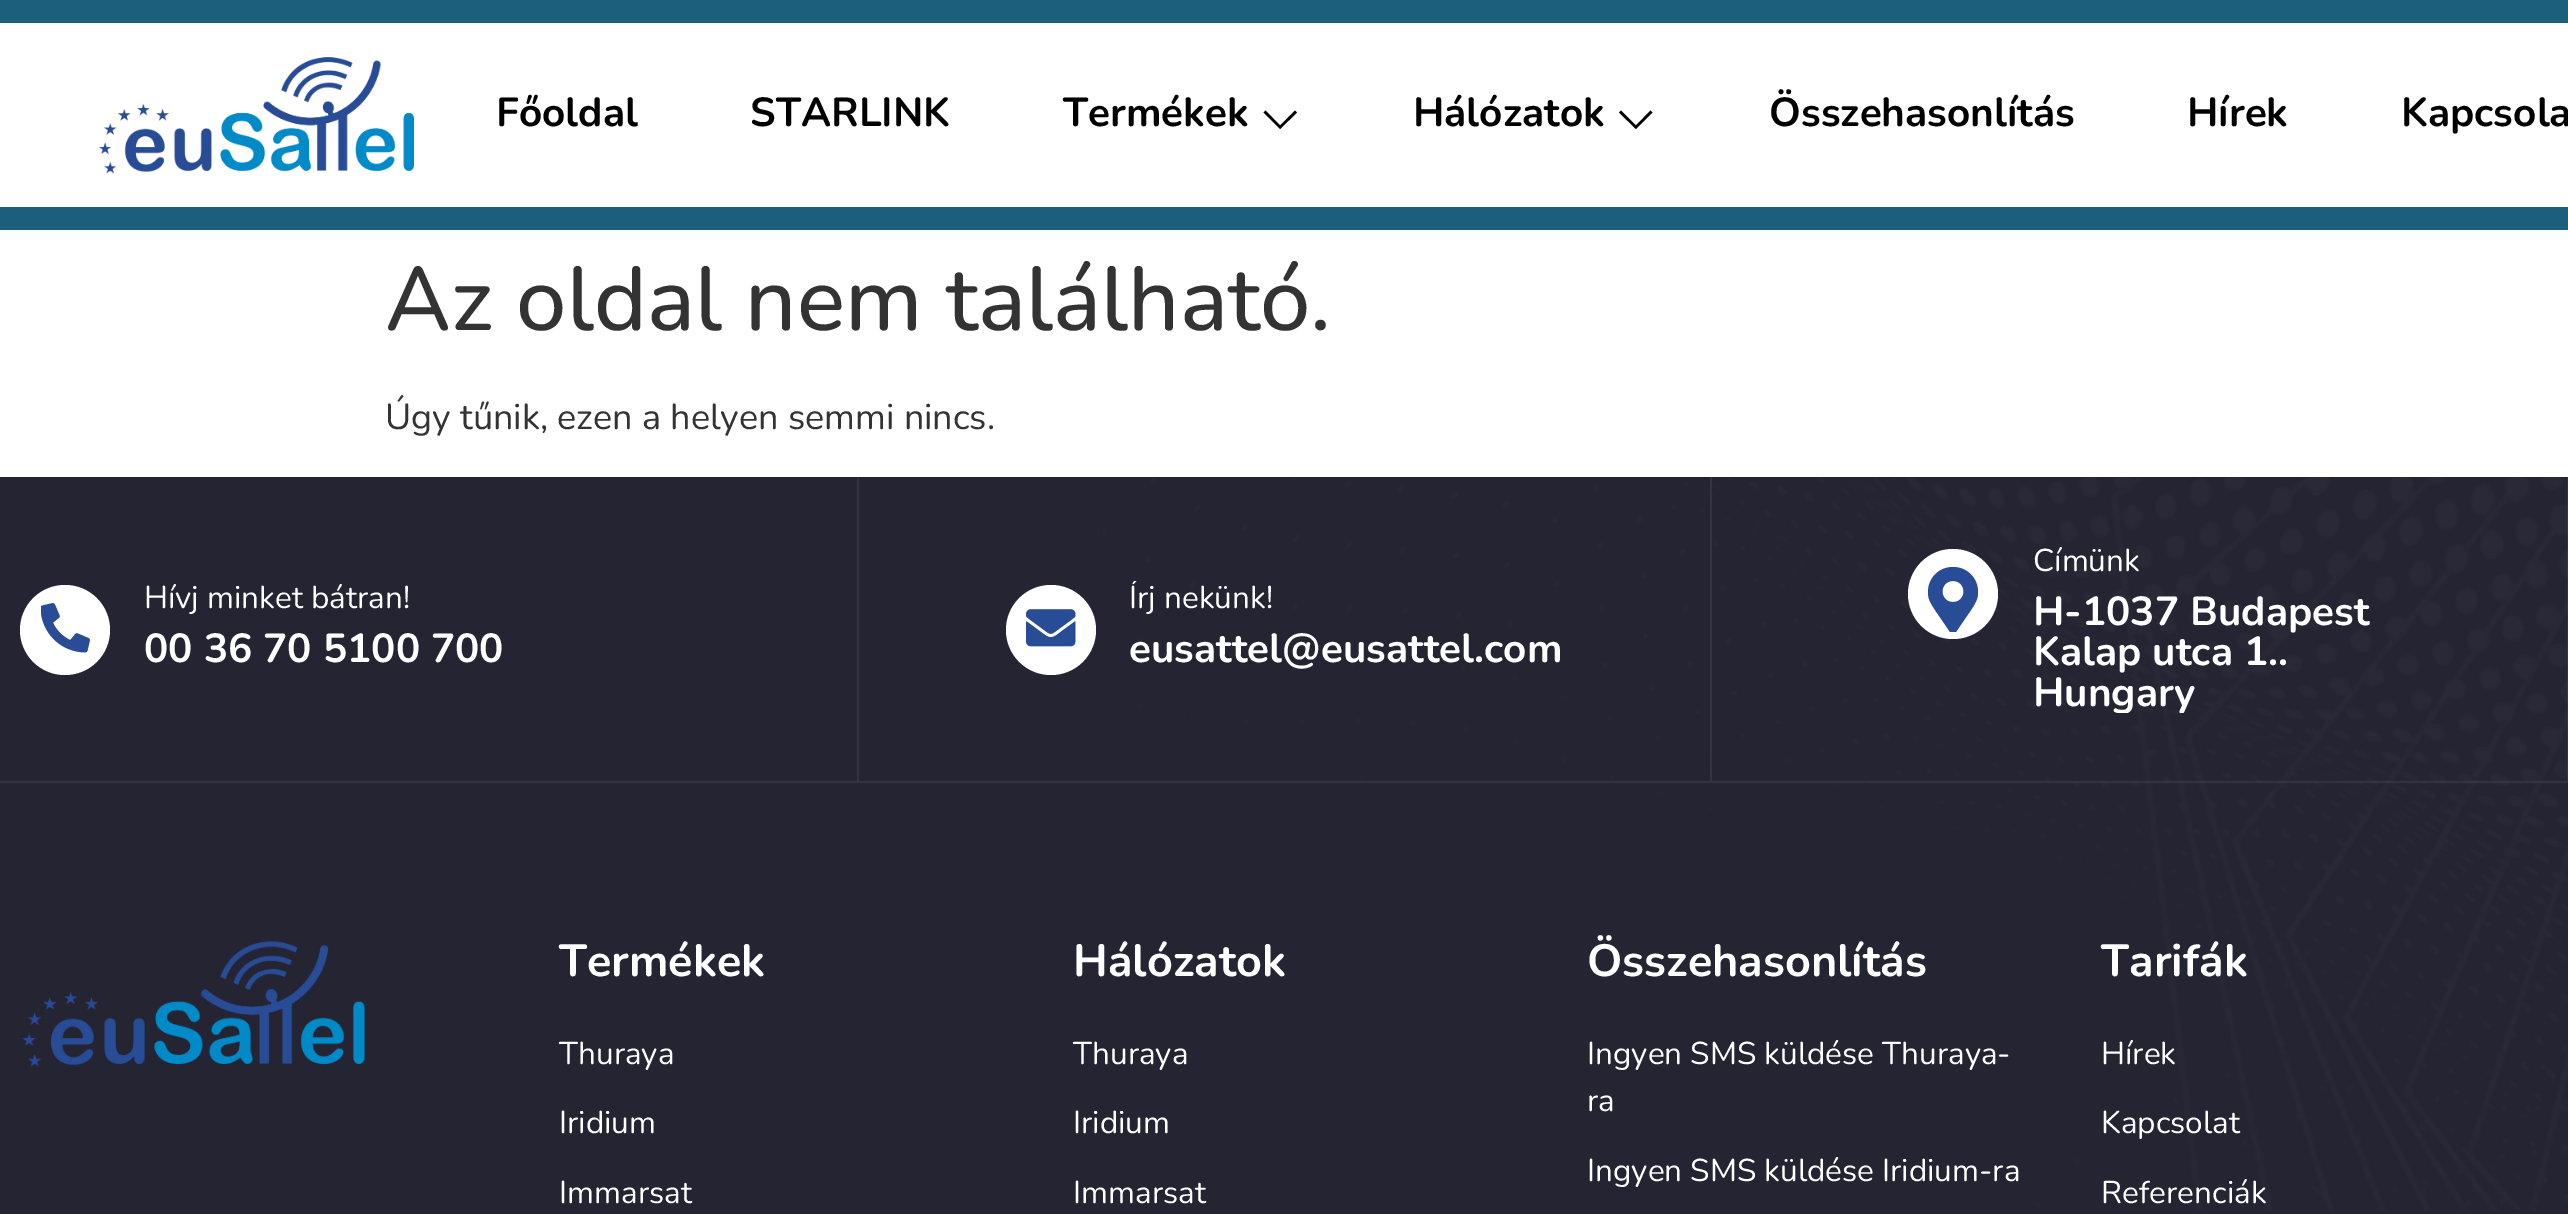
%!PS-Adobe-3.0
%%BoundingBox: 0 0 2568 1214
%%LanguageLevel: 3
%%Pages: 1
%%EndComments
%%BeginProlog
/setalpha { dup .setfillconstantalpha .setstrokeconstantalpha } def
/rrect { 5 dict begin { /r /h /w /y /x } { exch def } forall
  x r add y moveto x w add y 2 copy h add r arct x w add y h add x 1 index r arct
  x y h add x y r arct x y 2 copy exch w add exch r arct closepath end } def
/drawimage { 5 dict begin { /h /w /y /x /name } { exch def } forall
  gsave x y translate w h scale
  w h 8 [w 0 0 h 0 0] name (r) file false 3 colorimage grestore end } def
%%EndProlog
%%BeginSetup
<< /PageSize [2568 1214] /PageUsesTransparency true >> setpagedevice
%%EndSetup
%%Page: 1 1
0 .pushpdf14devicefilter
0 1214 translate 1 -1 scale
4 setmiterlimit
1 setgray
0 0 2568 1214 rectfill
0.106 0.373 0.49 setrgbcolor
0 0 2568 23 rectfill
0 207 2568 23 rectfill
(images/1.raw) 99 57 315 117 drawimage
0 setgray
newpath 1265.5 110.5 moveto 1263.5 112.5 lineto 1280 129 lineto 1297 112.5 lineto 1295 110.5 lineto 1280 125.5 lineto closepath fill
newpath 1621 110.5 moveto 1619 112.5 lineto 1636 129 lineto 1652.5 112.5 lineto 1650.5 110.5 lineto 1636 125.5 lineto closepath fill
0.145 0.141 0.2 setrgbcolor
0 477 2568 737 rectfill
(images/2.raw) 1103 477 1465 733 drawimage
0.07 setalpha
0.918 setgray
0 781 2568 2 rectfill
1 setalpha
1 setgray
newpath 65 630 45 0 360 arc closepath fill
(images/3.raw) 41 603 49 50 drawimage
0.2 0.196 0.251 setrgbcolor
1710 477 2 304 rectfill
857 477 2 304 rectfill
1 setgray
newpath 1051 630 45 0 360 arc closepath fill
(images/4.raw) 1026 609 50 38 drawimage
0.07 setalpha
0.918 setgray
2567 477 1 304 rectfill
1 setalpha
1 setgray
newpath 1953 594 45 0 360 arc closepath fill
gsave
1928 567 50 65 rectclip
0.157 0.298 0.588 setrgbcolor
newpath 1950 632 moveto 1932 605 1928 602 1928 592 curveto 1928 578 1939 567 1953 567 curveto 1967 567 1978 578 1978 592 curveto 1978 602 1974 605 1956 632 curveto 1954 633 1952 633 1950 632 curveto closepath 1953 602 moveto 1967 602 1967 581 1953 581 curveto 1939 581 1939 602 1953 602 curveto closepath fill
grestore
(images/5.raw) 22 941 343 126 drawimage
/Nunito-Bold [40.5 0 0 -40.5 0 0] selectfont
0 setgray
496 126 moveto (Főoldal) show
750 126 moveto (STARLINK) show
1063 126 moveto (Termékek) show
1413 126 moveto (Hálózatok) show
1769 126 moveto (Összehasonlítás) show
2187 126 moveto (Hírek) show
2401 126 moveto (Kapcsola) show
/Nunito-Medium [90 0 0 -90 0 0] selectfont
0.2 setgray
385 330 moveto (Az oldal nem található.) show
/Nunito-Regular [36 0 0 -36 0 0] selectfont
385 429 moveto (Úgy tűnik, ezen a helyen semmi nincs.) show
/Nunito-Regular [31.5 0 0 -31.5 0 0] selectfont
1 setgray
144 608 moveto (Hívj minket bátran!) show
/Nunito-Bold [40.5 0 0 -40.5 0 0] selectfont
144 662 moveto (00 36 70 5100 700) show
gsave
986 581 576 94 11 rrect clip newpath
/Nunito-Regular [31.5 0 0 -31.5 0 0] selectfont
1129 608 moveto (Írj nekünk!) show
grestore
1129 662 moveto (eusattel@eusattel.com) show
/Nunito-Regular [31.5 0 0 -31.5 0 0] selectfont
2033 571 moveto (Címünk) show
/Nunito-Bold [40.5 0 0 -40.5 0 0] selectfont
2033 625 moveto (H-1037 Budapest) show
2033 665 moveto (Kalap utca 1..) show
gsave
1888 545 481 168 11 rrect clip newpath
2033 706 moveto (Hungary) show
grestore
/Nunito-Bold [45 0 0 -45 0 0] selectfont
559 976 moveto (Termékek) show
/Nunito-Regular [31.5 0 0 -31.5 0 0] selectfont
559 1064 moveto (Thuraya) show
559 1133 moveto (Iridium) show
559 1203 moveto (Immarsat) show
/Nunito-Bold [45 0 0 -45 0 0] selectfont
1073 976 moveto (Hálózatok) show
/Nunito-Regular [31.5 0 0 -31.5 0 0] selectfont
1073 1064 moveto (Thuraya) show
1073 1133 moveto (Iridium) show
1073 1203 moveto (Immarsat) show
/Nunito-Bold [45 0 0 -45 0 0] selectfont
1587 976 moveto (Összehasonlítás) show
/Nunito-Regular [31.5 0 0 -31.5 0 0] selectfont
1587 1064 moveto (Ingyen SMS küldése Thuraya-) show
1587 1111 moveto (ra) show
1587 1181 moveto (Ingyen SMS küldése Iridium-ra) show
/Nunito-Bold [45 0 0 -45 0 0] selectfont
2101 976 moveto (Tarifák) show
/Nunito-Regular [31.5 0 0 -31.5 0 0] selectfont
2101 1064 moveto (Hírek) show
2101 1133 moveto (Kapcsolat) show
2101 1203 moveto (Referenciák) show
.poppdf14devicefilter showpage
%%EOF
